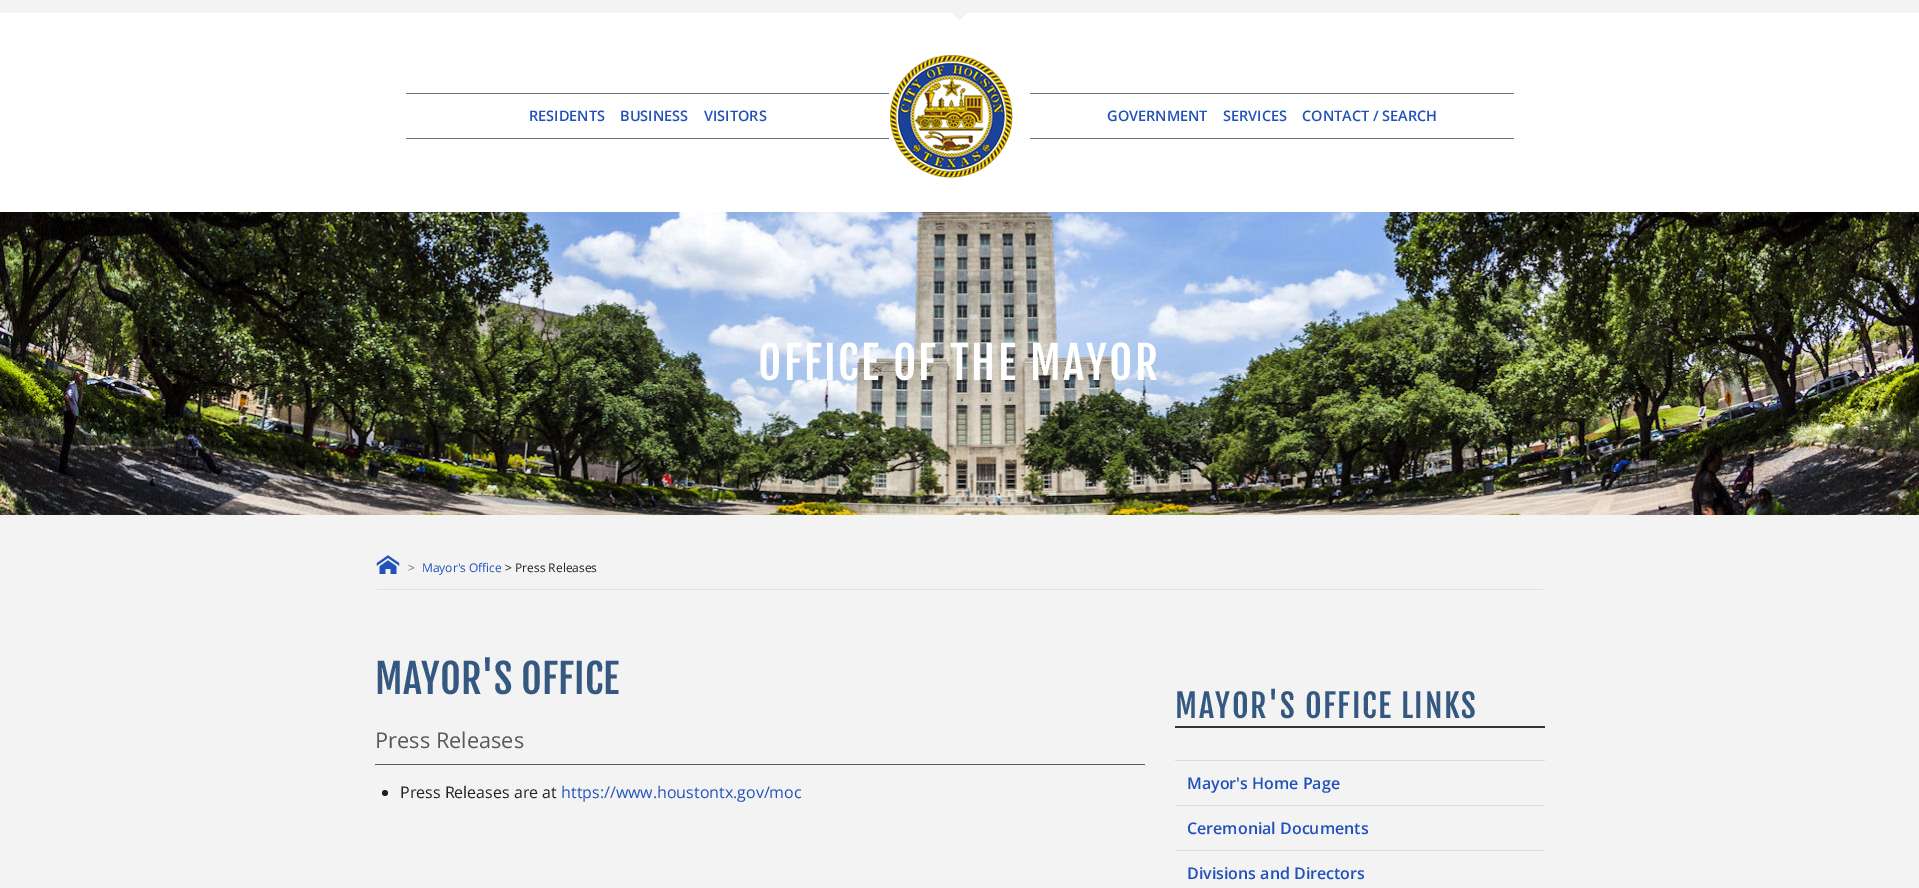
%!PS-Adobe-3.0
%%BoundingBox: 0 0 1919 888
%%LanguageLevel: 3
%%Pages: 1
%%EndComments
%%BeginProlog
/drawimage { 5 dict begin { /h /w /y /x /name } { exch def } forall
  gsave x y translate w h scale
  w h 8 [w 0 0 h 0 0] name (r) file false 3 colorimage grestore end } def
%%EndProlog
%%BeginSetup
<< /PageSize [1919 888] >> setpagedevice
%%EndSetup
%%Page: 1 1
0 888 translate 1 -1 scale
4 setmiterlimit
1 setgray
0 0 1919 888 rectfill
0.953 setgray
0 0 1919 13 rectfill
newpath 952.5 13.5 moveto 959.5 6 lineto 966.5 13.5 lineto 959.5 20.5 lineto closepath fill
0.424 0.459 0.49 setrgbcolor
406 93 483 1 rectfill
406 138 483 1 rectfill
(images/1.raw) 890 55 123 123 drawimage
1030 93 484 1 rectfill
1030 138 484 1 rectfill
(images/2.raw) 0 212 1919 303 drawimage
0.953 setgray
0 515 1919 373 rectfill
0.871 0.886 0.902 setrgbcolor
377 589 1166 1 rectfill
(images/3.raw) 376 555 24 19 drawimage
0.349 setgray
375 764 770 1 rectfill
0.133 setgray
newpath 385 793 3 0 360 arc closepath fill
0.2 setgray
1175 726 370 2 rectfill
0.859 setgray
1175 760 370 1 rectfill
1175 805 370 1 rectfill
1175 850 370 1 rectfill
/OpenSans-SemiBold [14.5 0 0 -14.5 0 0] selectfont
0.129 0.322 0.729 setrgbcolor
529 121 moveto (RESIDENTS) show
620 121 moveto (BUSINESS) show
704 121 moveto (VISITORS) show
1107 121 moveto (GOVERNMENT) show
1223 121 moveto (SERVICES) show
1302 121 moveto (CONTACT / SEARCH) show
/FjallaOne-Regular [44.75 0 0 -44.75 0 0] selectfont
1 setgray
758 380 moveto 2.25 0 (OFFICE OF THE MAYOR) ashow
/OpenSans-Regular [12 0 0 -12 0 0] selectfont
0.424 0.459 0.49 setrgbcolor
408 572 moveto (>) show
0.129 0.322 0.729 setrgbcolor
422 572 moveto (Mayor's Office) show
0.133 setgray
505 572 moveto (> Press Releases) show
/FjallaOne-Regular [40 0 0 -40 0 0] selectfont
0.204 0.345 0.498 setrgbcolor
375 694 moveto (MAYOR'S OFFICE) show
/OpenSans-Regular [21.75 0 0 -21.75 0 0] selectfont
0.349 setgray
375 748 moveto (Press Releases) show
/OpenSans-Regular [16 0 0 -16 0 0] selectfont
0.133 setgray
400 798 moveto (Press Releases are at) show
0.129 0.322 0.729 setrgbcolor
561 798 moveto (https://www.houstontx.gov/moc) show
/FjallaOne-Regular [32 0 0 -32 0 0] selectfont
0.204 0.345 0.498 setrgbcolor
1175 718 moveto 1.6 0 (MAYOR'S OFFICE LINKS) ashow
/OpenSans-SemiBold [16 0 0 -16 0 0] selectfont
0.129 0.322 0.729 setrgbcolor
1187 789 moveto (Mayor's Home Page) show
1187 834 moveto (Ceremonial Documents) show
1187 879 moveto (Divisions and Directors) show
showpage
%%EOF
